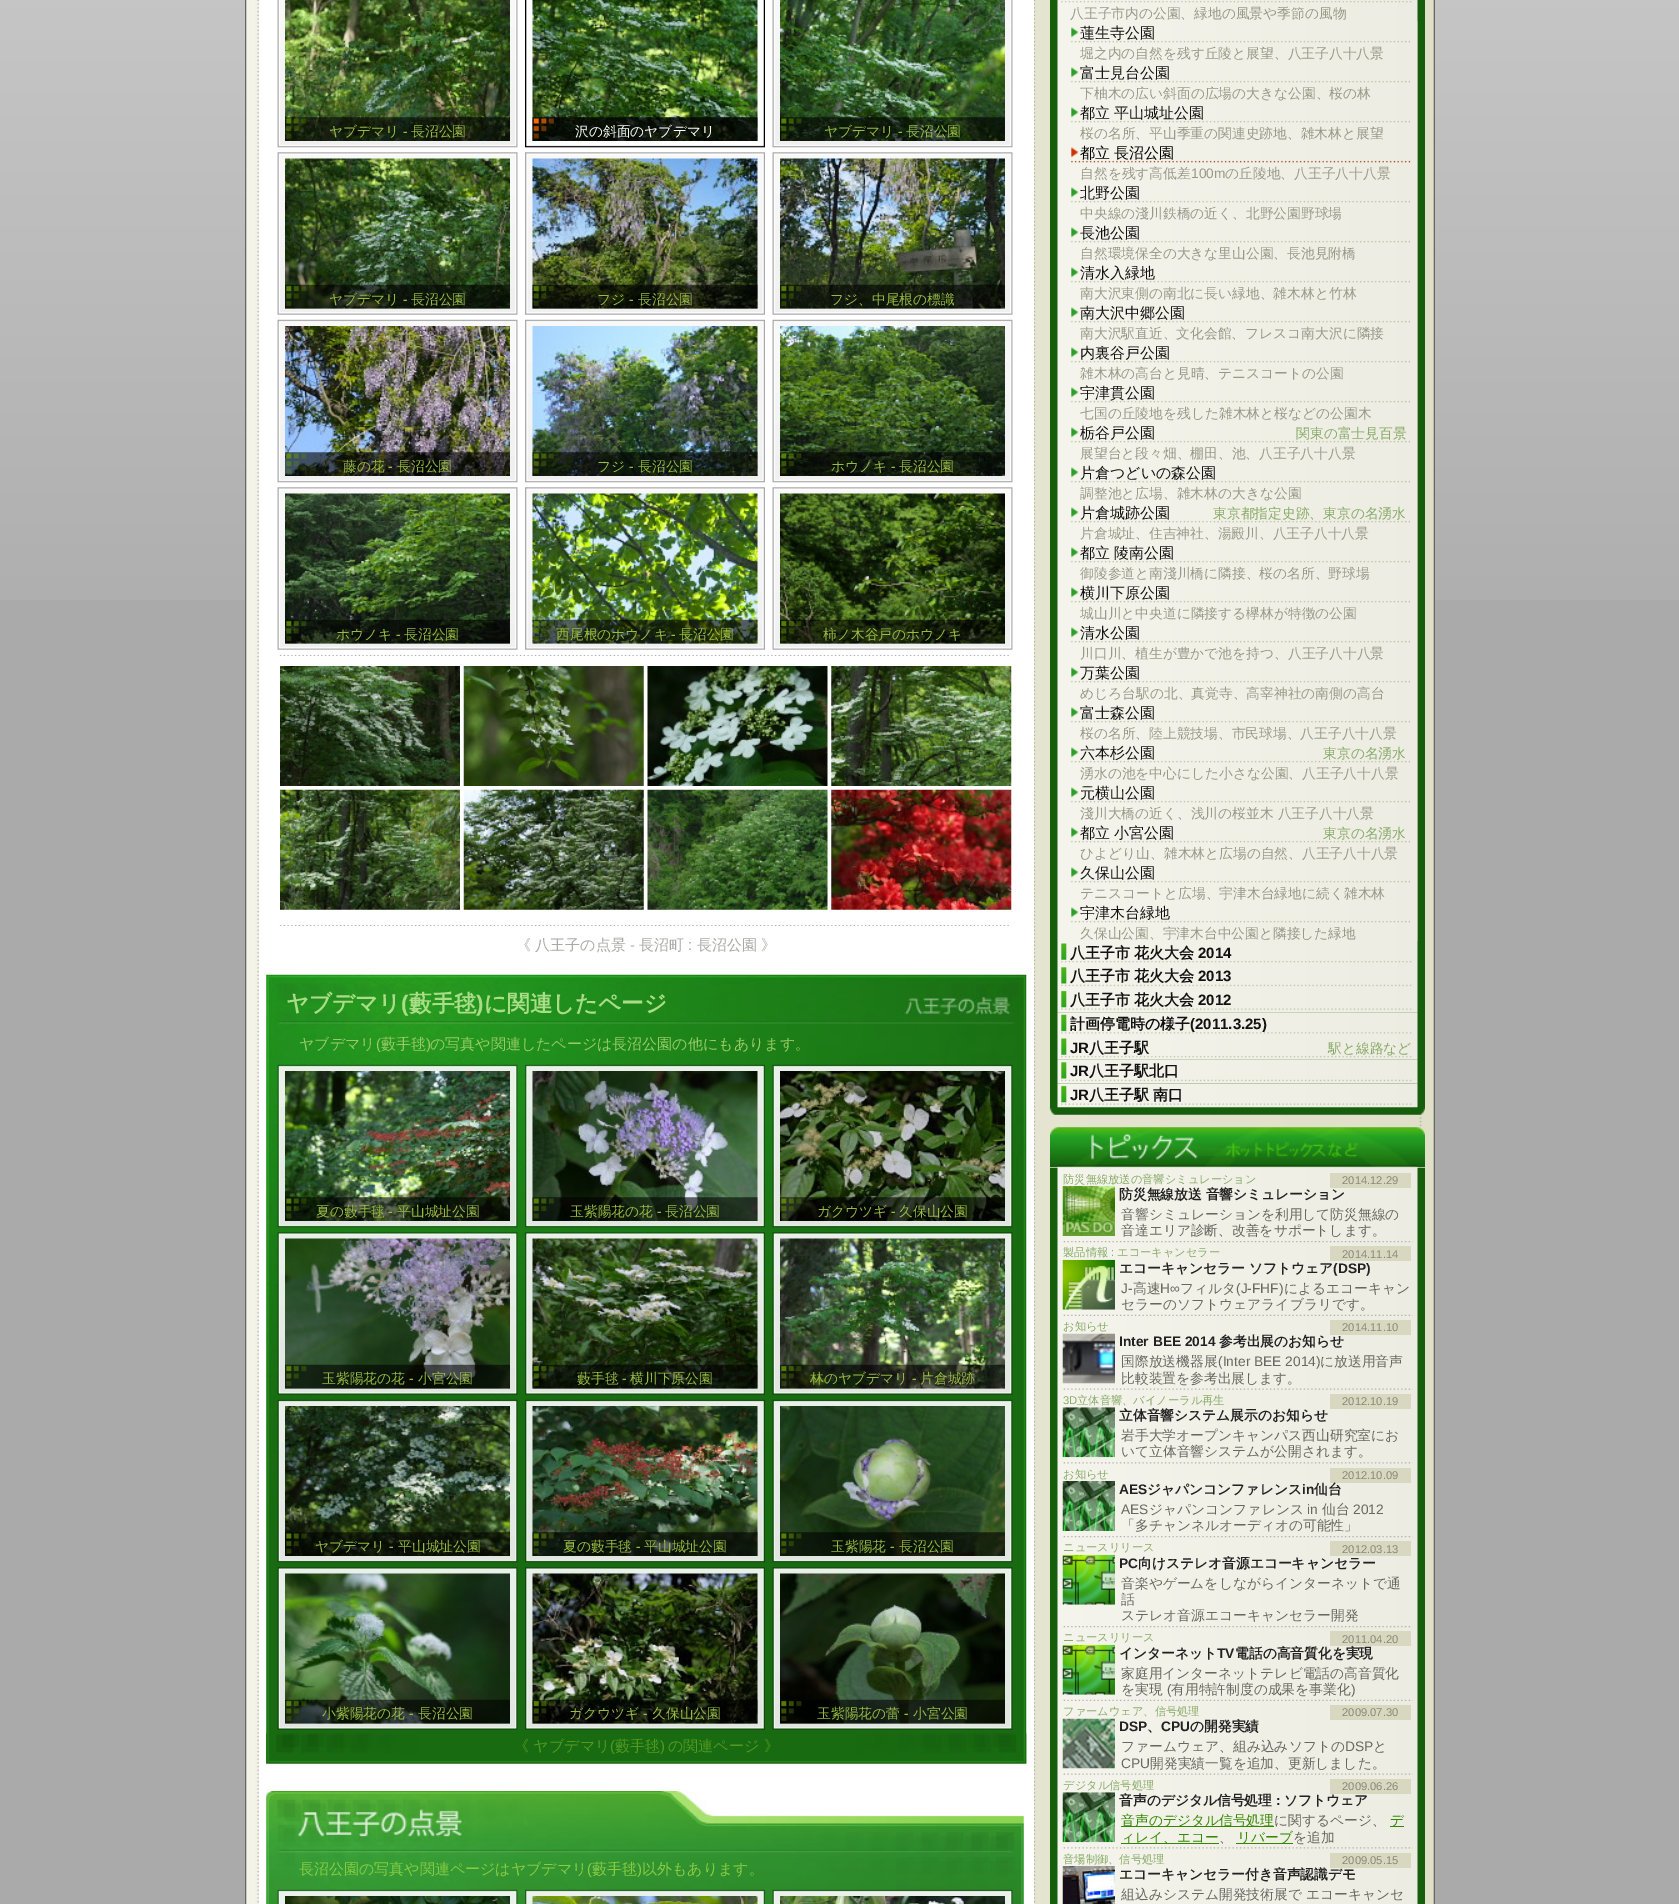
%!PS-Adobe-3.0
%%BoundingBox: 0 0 1679 1904
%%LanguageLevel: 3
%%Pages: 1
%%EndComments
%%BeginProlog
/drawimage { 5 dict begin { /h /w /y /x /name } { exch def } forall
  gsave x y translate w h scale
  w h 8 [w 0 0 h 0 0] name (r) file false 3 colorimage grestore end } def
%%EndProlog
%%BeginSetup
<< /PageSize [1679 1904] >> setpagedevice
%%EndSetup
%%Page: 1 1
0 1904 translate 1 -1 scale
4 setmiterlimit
0.667 setgray
0 0 1679 1904 rectfill
(images/1.raw) 0 0 1679 600 drawimage
(images/2.raw) 245 0 1190 1904 drawimage
1 setgray
259 0 775 1904 rectfill
(images/3.raw) 277 0 241 148 drawimage
(images/4.raw) 285 0 225 141 drawimage
(images/5.raw) 285 117 225 24 drawimage
(images/6.raw) 525 0 240 148 drawimage
(images/7.raw) 532 0 226 141 drawimage
(images/8.raw) 532 117 226 24 drawimage
(images/3.raw) 772 0 241 148 drawimage
(images/9.raw) 780 0 225 141 drawimage
(images/10.raw) 780 117 225 24 drawimage
(images/11.raw) 277 152 241 163 drawimage
(images/12.raw) 285 158 225 151 drawimage
(images/13.raw) 285 284 225 25 drawimage
(images/14.raw) 525 152 240 163 drawimage
(images/15.raw) 532 158 226 151 drawimage
(images/16.raw) 532 284 226 25 drawimage
(images/11.raw) 772 152 241 163 drawimage
(images/17.raw) 780 158 225 151 drawimage
(images/18.raw) 780 284 225 25 drawimage
(images/19.raw) 277 319 241 164 drawimage
(images/20.raw) 285 326 225 150 drawimage
(images/21.raw) 285 452 225 24 drawimage
(images/22.raw) 525 319 240 164 drawimage
(images/23.raw) 532 326 226 150 drawimage
(images/24.raw) 532 452 226 24 drawimage
(images/19.raw) 772 319 241 164 drawimage
(images/25.raw) 780 326 225 150 drawimage
(images/26.raw) 780 452 225 24 drawimage
(images/11.raw) 277 487 241 163 drawimage
(images/27.raw) 285 493 225 151 drawimage
(images/28.raw) 285 619 225 25 drawimage
(images/14.raw) 525 487 240 163 drawimage
(images/29.raw) 532 493 226 151 drawimage
(images/30.raw) 532 619 226 25 drawimage
(images/11.raw) 772 487 241 163 drawimage
(images/31.raw) 780 493 225 151 drawimage
(images/32.raw) 780 619 225 25 drawimage
(images/33.raw) 279 654 733 2 drawimage
(images/34.raw) 280 666 180 120 drawimage
(images/35.raw) 463 666 181 120 drawimage
(images/36.raw) 647 666 181 120 drawimage
(images/37.raw) 831 666 181 120 drawimage
(images/38.raw) 280 789 180 121 drawimage
(images/39.raw) 463 789 181 121 drawimage
(images/40.raw) 647 789 181 121 drawimage
(images/41.raw) 831 789 181 121 drawimage
(images/33.raw) 279 924 733 2 drawimage
(images/42.raw) 266 974 761 790 drawimage
(images/43.raw) 277 1064 241 164 drawimage
(images/44.raw) 285 1071 225 150 drawimage
(images/45.raw) 285 1197 225 24 drawimage
(images/46.raw) 525 1064 240 164 drawimage
(images/47.raw) 532 1071 226 150 drawimage
(images/48.raw) 532 1197 226 24 drawimage
(images/49.raw) 772 1064 241 164 drawimage
(images/50.raw) 780 1071 225 150 drawimage
(images/51.raw) 780 1197 225 24 drawimage
(images/52.raw) 277 1232 241 163 drawimage
(images/53.raw) 285 1238 225 151 drawimage
(images/54.raw) 285 1364 225 25 drawimage
(images/55.raw) 525 1232 240 163 drawimage
(images/56.raw) 532 1238 226 151 drawimage
(images/57.raw) 532 1364 226 25 drawimage
(images/58.raw) 772 1232 241 163 drawimage
(images/59.raw) 780 1238 225 151 drawimage
(images/60.raw) 780 1364 225 25 drawimage
(images/61.raw) 277 1399 241 164 drawimage
(images/62.raw) 285 1406 225 150 drawimage
(images/63.raw) 285 1532 225 24 drawimage
(images/64.raw) 525 1399 240 164 drawimage
(images/65.raw) 532 1406 226 150 drawimage
(images/66.raw) 532 1532 226 24 drawimage
(images/67.raw) 772 1399 241 164 drawimage
(images/68.raw) 780 1406 225 150 drawimage
(images/69.raw) 780 1532 225 24 drawimage
(images/70.raw) 277 1567 241 163 drawimage
(images/71.raw) 285 1573 225 151 drawimage
(images/72.raw) 285 1699 225 25 drawimage
(images/73.raw) 525 1567 240 163 drawimage
(images/74.raw) 532 1573 226 151 drawimage
(images/75.raw) 532 1699 226 25 drawimage
(images/70.raw) 772 1567 241 163 drawimage
(images/76.raw) 780 1573 225 151 drawimage
(images/77.raw) 780 1699 225 25 drawimage
(images/78.raw) 266 1733 761 31 drawimage
(images/79.raw) 1049 1107 376 8 drawimage
0.082 0.369 0.047 setrgbcolor
1050 0 375 1108 rectfill
(images/80.raw) 1057 0 361 941 drawimage
(images/81.raw) 1061 0 351 3 drawimage
0.608 0.714 0.573 setrgbcolor
1417 21 1 920 rectfill
(images/82.raw) 1071 27 340 16 drawimage
(images/82.raw) 1071 67 340 16 drawimage
(images/82.raw) 1071 107 340 16 drawimage
(images/83.raw) 1071 147 340 16 drawimage
(images/82.raw) 1071 187 340 16 drawimage
(images/82.raw) 1071 227 340 16 drawimage
(images/82.raw) 1071 267 340 16 drawimage
(images/82.raw) 1071 307 340 16 drawimage
(images/82.raw) 1071 347 340 16 drawimage
(images/82.raw) 1071 387 340 16 drawimage
(images/82.raw) 1071 427 340 16 drawimage
(images/82.raw) 1071 467 340 16 drawimage
(images/82.raw) 1071 507 340 16 drawimage
(images/82.raw) 1071 547 340 16 drawimage
(images/84.raw) 1071 587 340 16 drawimage
(images/82.raw) 1071 627 340 16 drawimage
(images/82.raw) 1071 667 340 16 drawimage
(images/82.raw) 1071 707 340 16 drawimage
(images/82.raw) 1071 747 340 16 drawimage
(images/85.raw) 1071 787 340 16 drawimage
(images/82.raw) 1071 827 340 16 drawimage
(images/82.raw) 1071 867 340 16 drawimage
(images/82.raw) 1071 907 340 16 drawimage
(images/86.raw) 1057 941 361 72 drawimage
(images/87.raw) 1061 943 351 20 drawimage
(images/88.raw) 1061 967 351 20 drawimage
(images/89.raw) 1061 990 351 20 drawimage
(images/90.raw) 1057 1012 361 24 drawimage
(images/91.raw) 1061 1014 351 20 drawimage
(images/92.raw) 1057 1036 361 24 drawimage
(images/87.raw) 1061 1038 351 20 drawimage
(images/93.raw) 1057 1059 361 25 drawimage
(images/88.raw) 1061 1062 351 20 drawimage
(images/94.raw) 1057 1083 361 25 drawimage
(images/89.raw) 1061 1085 351 20 drawimage
(images/95.raw) 1050 1127 375 41 drawimage
0.082 0.369 0.047 setrgbcolor
1050 1168 375 736 rectfill
(images/96.raw) 1057 1167 361 737 drawimage
(images/97.raw) 1063 1241 350 2 drawimage
0.847 0.847 0.753 setrgbcolor
1330 1173 81 15 rectfill
(images/98.raw) 1062 1186 53 50 drawimage
(images/99.raw) 1063 1314 350 2 drawimage
1330 1246 81 15 rectfill
(images/100.raw) 1062 1259 53 51 drawimage
(images/101.raw) 1063 1388 350 2 drawimage
1330 1320 81 15 rectfill
(images/102.raw) 1062 1333 53 51 drawimage
(images/103.raw) 1063 1462 350 2 drawimage
1330 1394 81 15 rectfill
(images/104.raw) 1062 1407 53 51 drawimage
(images/97.raw) 1063 1536 350 2 drawimage
1330 1468 81 15 rectfill
(images/105.raw) 1062 1481 53 50 drawimage
(images/97.raw) 1063 1626 350 2 drawimage
1330 1541 81 15 rectfill
(images/106.raw) 1062 1554 53 51 drawimage
(images/99.raw) 1063 1699 350 2 drawimage
1330 1631 81 15 rectfill
(images/107.raw) 1062 1644 53 51 drawimage
(images/101.raw) 1063 1773 350 2 drawimage
1330 1705 81 15 rectfill
(images/108.raw) 1062 1718 53 51 drawimage
(images/103.raw) 1063 1847 350 2 drawimage
1330 1779 81 15 rectfill
(images/104.raw) 1062 1792 53 51 drawimage
0.2 0.533 0 setrgbcolor
1121 1826 153 1 rectfill
1390 1826 14 1 rectfill
1121 1843 98 1 rectfill
1236 1843 57 1 rectfill
0.847 0.847 0.753 setrgbcolor
1330 1853 81 15 rectfill
(images/109.raw) 1062 1866 53 38 drawimage
(images/110.raw) 266 1791 758 113 drawimage
(images/111.raw) 277 1889 241 15 drawimage
(images/112.raw) 285 1896 225 8 drawimage
(images/113.raw) 525 1889 240 15 drawimage
(images/114.raw) 532 1896 226 8 drawimage
(images/115.raw) 772 1889 241 15 drawimage
(images/116.raw) 780 1896 225 8 drawimage
/WenQuanYiZenHei-Medium [13.75 0 0 -13.75 0 0] selectfont
0.6 0.733 0.267 setrgbcolor
329 136 moveto (ヤブデマリ) show
/LiberationSans-Regular [13.75 0 0 -13.75 0 0] selectfont
403 136 moveto (-) show
/WenQuanYiZenHei-Medium [13.75 0 0 -13.75 0 0] selectfont
411 136 moveto (長沼公園) show
1 setgray
575 136 moveto (沢の斜面のヤブデマリ) show
0.6 0.733 0.267 setrgbcolor
824 136 moveto (ヤブデマリ) show
/LiberationSans-Regular [13.75 0 0 -13.75 0 0] selectfont
898 136 moveto (-) show
/WenQuanYiZenHei-Medium [13.75 0 0 -13.75 0 0] selectfont
906 136 moveto (長沼公園) show
329 304 moveto (ヤブデマリ) show
/LiberationSans-Regular [13.75 0 0 -13.75 0 0] selectfont
403 304 moveto (-) show
/WenQuanYiZenHei-Medium [13.75 0 0 -13.75 0 0] selectfont
411 304 moveto (長沼公園) show
597 304 moveto (フジ) show
/LiberationSans-Regular [13.75 0 0 -13.75 0 0] selectfont
629 304 moveto (-) show
/WenQuanYiZenHei-Medium [13.75 0 0 -13.75 0 0] selectfont
638 304 moveto (長沼公園) show
830 304 moveto (フジ、中尾根の標識) show
343 471 moveto (藤の花) show
/LiberationSans-Regular [13.75 0 0 -13.75 0 0] selectfont
388 471 moveto (-) show
/WenQuanYiZenHei-Medium [13.75 0 0 -13.75 0 0] selectfont
397 471 moveto (長沼公園) show
597 471 moveto (フジ) show
/LiberationSans-Regular [13.75 0 0 -13.75 0 0] selectfont
629 471 moveto (-) show
/WenQuanYiZenHei-Medium [13.75 0 0 -13.75 0 0] selectfont
638 471 moveto (長沼公園) show
831 471 moveto (ホウノキ) show
/LiberationSans-Regular [13.75 0 0 -13.75 0 0] selectfont
891 471 moveto (-) show
/WenQuanYiZenHei-Medium [13.75 0 0 -13.75 0 0] selectfont
899 471 moveto (長沼公園) show
336 639 moveto (ホウノキ) show
/LiberationSans-Regular [13.75 0 0 -13.75 0 0] selectfont
396 639 moveto (-) show
/WenQuanYiZenHei-Medium [13.75 0 0 -13.75 0 0] selectfont
404 639 moveto (長沼公園) show
556 639 moveto (西尾根のホウノキ) show
/LiberationSans-Regular [13.75 0 0 -13.75 0 0] selectfont
671 639 moveto (-) show
/WenQuanYiZenHei-Medium [13.75 0 0 -13.75 0 0] selectfont
679 639 moveto (長沼公園) show
823 639 moveto (柿ノ木谷戸のホウノキ) show
/WenQuanYiZenHei-Medium [15 0 0 -15 0 0] selectfont
0.659 0.667 0.643 setrgbcolor
516 950 moveto (《 八王子の点景) show
/LiberationSans-Regular [15 0 0 -15 0 0] selectfont
630 950 moveto (-) show
/WenQuanYiZenHei-Medium [15 0 0 -15 0 0] selectfont
639 950 moveto (長沼町) show
/LiberationSans-Regular [15 0 0 -15 0 0] selectfont
688 950 moveto (:) show
/WenQuanYiZenHei-Medium [15 0 0 -15 0 0] selectfont
697 950 moveto (長沼公園 》) show
/WenQuanYiZenHei-Bold [22.5 0 0 -22.5 0 0] selectfont
0.667 0.867 0.533 setrgbcolor
286 1011 moveto (ヤブデマリ) show
/LiberationSans-Bold [22.5 0 0 -22.5 0 0] selectfont
401 1011 moveto (\() show
/WenQuanYiZenHei-Bold [22.5 0 0 -22.5 0 0] selectfont
409 1011 moveto (藪手毬) show
/LiberationSans-Bold [22.5 0 0 -22.5 0 0] selectfont
476 1011 moveto (\)) show
/WenQuanYiZenHei-Bold [22.5 0 0 -22.5 0 0] selectfont
484 1011 moveto (に関連したページ) show
/WenQuanYiZenHei-Medium [15 0 0 -15 0 0] selectfont
0.6 0.8 0.4 setrgbcolor
299 1049 moveto (ヤブデマリ) show
/LiberationSans-Regular [15 0 0 -15 0 0] selectfont
376 1049 moveto (\() show
/WenQuanYiZenHei-Medium [15 0 0 -15 0 0] selectfont
381 1049 moveto (藪手毬) show
/LiberationSans-Regular [15 0 0 -15 0 0] selectfont
426 1049 moveto (\)) show
/WenQuanYiZenHei-Medium [15 0 0 -15 0 0] selectfont
430 1049 moveto (の写真や関連したページは長沼公園の他にもあります。) show
/WenQuanYiZenHei-Medium [13.75 0 0 -13.75 0 0] selectfont
0.6 0.733 0.267 setrgbcolor
316 1216 moveto (夏の藪手毬) show
/LiberationSans-Regular [13.75 0 0 -13.75 0 0] selectfont
388 1216 moveto (-) show
/WenQuanYiZenHei-Medium [13.75 0 0 -13.75 0 0] selectfont
397 1216 moveto (平山城址公園) show
570 1216 moveto (玉紫陽花の花) show
/LiberationSans-Regular [13.75 0 0 -13.75 0 0] selectfont
657 1216 moveto (-) show
/WenQuanYiZenHei-Medium [13.75 0 0 -13.75 0 0] selectfont
665 1216 moveto (長沼公園) show
817 1216 moveto (ガクウツギ) show
/LiberationSans-Regular [13.75 0 0 -13.75 0 0] selectfont
891 1216 moveto (-) show
/WenQuanYiZenHei-Medium [13.75 0 0 -13.75 0 0] selectfont
899 1216 moveto (久保山公園) show
322 1383 moveto (玉紫陽花の花) show
/LiberationSans-Regular [13.75 0 0 -13.75 0 0] selectfont
409 1383 moveto (-) show
/WenQuanYiZenHei-Medium [13.75 0 0 -13.75 0 0] selectfont
418 1383 moveto (小宮公園) show
577 1383 moveto (藪手毬) show
/LiberationSans-Regular [13.75 0 0 -13.75 0 0] selectfont
622 1383 moveto (-) show
/WenQuanYiZenHei-Medium [13.75 0 0 -13.75 0 0] selectfont
630 1383 moveto (横川下原公園) show
810 1383 moveto (林のヤブデマリ) show
/LiberationSans-Regular [13.75 0 0 -13.75 0 0] selectfont
912 1383 moveto (-) show
/WenQuanYiZenHei-Medium [13.75 0 0 -13.75 0 0] selectfont
920 1383 moveto (片倉城跡) show
315 1551 moveto (ヤブデマリ) show
/LiberationSans-Regular [13.75 0 0 -13.75 0 0] selectfont
389 1551 moveto (-) show
/WenQuanYiZenHei-Medium [13.75 0 0 -13.75 0 0] selectfont
398 1551 moveto (平山城址公園) show
563 1551 moveto (夏の藪手毬) show
/LiberationSans-Regular [13.75 0 0 -13.75 0 0] selectfont
636 1551 moveto (-) show
/WenQuanYiZenHei-Medium [13.75 0 0 -13.75 0 0] selectfont
644 1551 moveto (平山城址公園) show
831 1551 moveto (玉紫陽花) show
/LiberationSans-Regular [13.75 0 0 -13.75 0 0] selectfont
890 1551 moveto (-) show
/WenQuanYiZenHei-Medium [13.75 0 0 -13.75 0 0] selectfont
899 1551 moveto (長沼公園) show
322 1718 moveto (小紫陽花の花) show
/LiberationSans-Regular [13.75 0 0 -13.75 0 0] selectfont
409 1718 moveto (-) show
/WenQuanYiZenHei-Medium [13.75 0 0 -13.75 0 0] selectfont
418 1718 moveto (長沼公園) show
569 1718 moveto (ガクウツギ) show
/LiberationSans-Regular [13.75 0 0 -13.75 0 0] selectfont
643 1718 moveto (-) show
/WenQuanYiZenHei-Medium [13.75 0 0 -13.75 0 0] selectfont
652 1718 moveto (久保山公園) show
817 1718 moveto (玉紫陽花の蕾) show
/LiberationSans-Regular [13.75 0 0 -13.75 0 0] selectfont
904 1718 moveto (-) show
/WenQuanYiZenHei-Medium [13.75 0 0 -13.75 0 0] selectfont
913 1718 moveto (小宮公園) show
/WenQuanYiZenHei-Medium [15 0 0 -15 0 0] selectfont
0.333 0.6 0.133 setrgbcolor
514 1751 moveto (《 ヤブデマリ) show
/LiberationSans-Regular [15 0 0 -15 0 0] selectfont
610 1751 moveto (\() show
/WenQuanYiZenHei-Medium [15 0 0 -15 0 0] selectfont
615 1751 moveto (藪手毬) show
/LiberationSans-Regular [15 0 0 -15 0 0] selectfont
660 1751 moveto (\)) show
/WenQuanYiZenHei-Medium [15 0 0 -15 0 0] selectfont
668 1751 moveto (の関連ページ 》) show
/WenQuanYiZenHei-Medium [13.75 0 0 -13.75 0 0] selectfont
0.6 0.6 0.533 setrgbcolor
1070 18 moveto (八王子市内の公園、緑地の風景や季節の風物) show
/WenQuanYiZenHei-Medium [15 0 0 -15 0 0] selectfont
0.067 setgray
1080 38 moveto (蓮生寺公園) show
/WenQuanYiZenHei-Medium [13.75 0 0 -13.75 0 0] selectfont
0.6 0.6 0.533 setrgbcolor
1080 58 moveto (堀之内の自然を残す丘陵と展望、八王子八十八景) show
/WenQuanYiZenHei-Medium [15 0 0 -15 0 0] selectfont
0.067 setgray
1080 78 moveto (富士見台公園) show
/WenQuanYiZenHei-Medium [13.75 0 0 -13.75 0 0] selectfont
0.6 0.6 0.533 setrgbcolor
1080 98 moveto (下柚木の広い斜面の広場の大きな公園、桜の林) show
/WenQuanYiZenHei-Medium [15 0 0 -15 0 0] selectfont
0.067 setgray
1080 118 moveto (都立 平山城址公園) show
/WenQuanYiZenHei-Medium [13.75 0 0 -13.75 0 0] selectfont
0.6 0.6 0.533 setrgbcolor
1080 138 moveto (桜の名所、平山季重の関連史跡地、雑木林と展望) show
/WenQuanYiZenHei-Medium [15 0 0 -15 0 0] selectfont
0 setgray
1080 158 moveto (都立 長沼公園) show
/WenQuanYiZenHei-Medium [13.75 0 0 -13.75 0 0] selectfont
0.6 0.6 0.533 setrgbcolor
1080 178 moveto (自然を残す高低差) show
/LiberationSans-Regular [13.75 0 0 -13.75 0 0] selectfont
1191 178 moveto (100m) show
/WenQuanYiZenHei-Medium [13.75 0 0 -13.75 0 0] selectfont
1225 178 moveto (の丘陵地、八王子八十八景) show
/WenQuanYiZenHei-Medium [15 0 0 -15 0 0] selectfont
0.067 setgray
1080 198 moveto (北野公園) show
/WenQuanYiZenHei-Medium [13.75 0 0 -13.75 0 0] selectfont
0.6 0.6 0.533 setrgbcolor
1080 218 moveto (中央線の淺川鉄橋の近く、北野公園野球場) show
/WenQuanYiZenHei-Medium [15 0 0 -15 0 0] selectfont
0.067 setgray
1080 238 moveto (長池公園) show
/WenQuanYiZenHei-Medium [13.75 0 0 -13.75 0 0] selectfont
0.6 0.6 0.533 setrgbcolor
1080 258 moveto (自然環境保全の大きな里山公園、長池見附橋) show
/WenQuanYiZenHei-Medium [15 0 0 -15 0 0] selectfont
0.067 setgray
1080 278 moveto (清水入緑地) show
/WenQuanYiZenHei-Medium [13.75 0 0 -13.75 0 0] selectfont
0.6 0.6 0.533 setrgbcolor
1080 298 moveto (南大沢東側の南北に長い緑地、雑木林と竹林) show
/WenQuanYiZenHei-Medium [15 0 0 -15 0 0] selectfont
0.067 setgray
1080 318 moveto (南大沢中郷公園) show
/WenQuanYiZenHei-Medium [13.75 0 0 -13.75 0 0] selectfont
0.6 0.6 0.533 setrgbcolor
1080 338 moveto (南大沢駅直近、文化会館、フレスコ南大沢に隣接) show
/WenQuanYiZenHei-Medium [15 0 0 -15 0 0] selectfont
0.067 setgray
1080 358 moveto (内裏谷戸公園) show
/WenQuanYiZenHei-Medium [13.75 0 0 -13.75 0 0] selectfont
0.6 0.6 0.533 setrgbcolor
1080 378 moveto (雑木林の高台と見晴、テニスコートの公園) show
/WenQuanYiZenHei-Medium [15 0 0 -15 0 0] selectfont
0.067 setgray
1080 398 moveto (宇津貫公園) show
/WenQuanYiZenHei-Medium [13.75 0 0 -13.75 0 0] selectfont
0.6 0.6 0.533 setrgbcolor
1080 418 moveto (七国の丘陵地を残した雑木林と桜などの公園木) show
/WenQuanYiZenHei-Medium [15 0 0 -15 0 0] selectfont
0.067 setgray
1080 438 moveto (栃谷戸公園) show
/WenQuanYiZenHei-Medium [13.75 0 0 -13.75 0 0] selectfont
0.533 0.667 0.4 setrgbcolor
1296 438 moveto (関東の富士見百景) show
0.6 0.6 0.533 setrgbcolor
1080 458 moveto (展望台と段々畑、棚田、池、八王子八十八景) show
/WenQuanYiZenHei-Medium [15 0 0 -15 0 0] selectfont
0.067 setgray
1080 478 moveto (片倉つどいの森公園) show
/WenQuanYiZenHei-Medium [13.75 0 0 -13.75 0 0] selectfont
0.6 0.6 0.533 setrgbcolor
1080 498 moveto (調整池と広場、雑木林の大きな公園) show
/WenQuanYiZenHei-Medium [15 0 0 -15 0 0] selectfont
0.067 setgray
1080 518 moveto (片倉城跡公園) show
/WenQuanYiZenHei-Medium [13.75 0 0 -13.75 0 0] selectfont
0.533 0.667 0.4 setrgbcolor
1213 518 moveto (東京都指定史跡、東京の名湧水) show
0.6 0.6 0.533 setrgbcolor
1080 538 moveto (片倉城址、住吉神社、湯殿川、八王子八十八景) show
/WenQuanYiZenHei-Medium [15 0 0 -15 0 0] selectfont
0.067 setgray
1080 558 moveto (都立 陵南公園) show
/WenQuanYiZenHei-Medium [13.75 0 0 -13.75 0 0] selectfont
0.6 0.6 0.533 setrgbcolor
1080 578 moveto (御陵参道と南淺川橋に隣接、桜の名所、野球場) show
/WenQuanYiZenHei-Medium [15 0 0 -15 0 0] selectfont
0.067 setgray
1080 598 moveto (横川下原公園) show
/WenQuanYiZenHei-Medium [13.75 0 0 -13.75 0 0] selectfont
0.6 0.6 0.533 setrgbcolor
1080 618 moveto (城山川と中央道に隣接する欅林が特徴の公園) show
/WenQuanYiZenHei-Medium [15 0 0 -15 0 0] selectfont
0.067 setgray
1080 638 moveto (清水公園) show
/WenQuanYiZenHei-Medium [13.75 0 0 -13.75 0 0] selectfont
0.6 0.6 0.533 setrgbcolor
1080 658 moveto (川口川、植生が豊かで池を持つ、八王子八十八景) show
/WenQuanYiZenHei-Medium [15 0 0 -15 0 0] selectfont
0.067 setgray
1080 678 moveto (万葉公園) show
/WenQuanYiZenHei-Medium [13.75 0 0 -13.75 0 0] selectfont
0.6 0.6 0.533 setrgbcolor
1080 698 moveto (めじろ台駅の北、真覚寺、高宰神社の南側の高台) show
/WenQuanYiZenHei-Medium [15 0 0 -15 0 0] selectfont
0.067 setgray
1080 718 moveto (富士森公園) show
/WenQuanYiZenHei-Medium [13.75 0 0 -13.75 0 0] selectfont
0.6 0.6 0.533 setrgbcolor
1080 738 moveto (桜の名所、陸上競技場、市民球場、八王子八十八景) show
/WenQuanYiZenHei-Medium [15 0 0 -15 0 0] selectfont
0.067 setgray
1080 758 moveto (六本杉公園) show
/WenQuanYiZenHei-Medium [13.75 0 0 -13.75 0 0] selectfont
0.533 0.667 0.4 setrgbcolor
1323 758 moveto (東京の名湧水) show
0.6 0.6 0.533 setrgbcolor
1080 778 moveto (湧水の池を中心にした小さな公園、八王子八十八景) show
/WenQuanYiZenHei-Medium [15 0 0 -15 0 0] selectfont
0.067 setgray
1080 798 moveto (元横山公園) show
/WenQuanYiZenHei-Medium [13.75 0 0 -13.75 0 0] selectfont
0.6 0.6 0.533 setrgbcolor
1080 818 moveto (淺川大橋の近く、浅川の桜並木 八王子八十八景) show
/WenQuanYiZenHei-Medium [15 0 0 -15 0 0] selectfont
0.067 setgray
1080 838 moveto (都立 小宮公園) show
/WenQuanYiZenHei-Medium [13.75 0 0 -13.75 0 0] selectfont
0.533 0.667 0.4 setrgbcolor
1323 838 moveto (東京の名湧水) show
0.6 0.6 0.533 setrgbcolor
1080 858 moveto (ひよどり山、雑木林と広場の自然、八王子八十八景) show
/WenQuanYiZenHei-Medium [15 0 0 -15 0 0] selectfont
0.067 setgray
1080 878 moveto (久保山公園) show
/WenQuanYiZenHei-Medium [13.75 0 0 -13.75 0 0] selectfont
0.6 0.6 0.533 setrgbcolor
1080 898 moveto (テニスコートと広場、宇津木台緑地に続く雑木林) show
/WenQuanYiZenHei-Medium [15 0 0 -15 0 0] selectfont
0.067 setgray
1080 918 moveto (宇津木台緑地) show
/WenQuanYiZenHei-Medium [13.75 0 0 -13.75 0 0] selectfont
0.6 0.6 0.533 setrgbcolor
1080 938 moveto (久保山公園、宇津木台中公園と隣接した緑地) show
/WenQuanYiZenHei-Bold [15 0 0 -15 0 0] selectfont
0.067 setgray
1070 958 moveto (八王子市 花火大会) show
/LiberationSans-Bold [15 0 0 -15 0 0] selectfont
1198 958 moveto (2014) show
/WenQuanYiZenHei-Bold [15 0 0 -15 0 0] selectfont
1070 981 moveto (八王子市 花火大会) show
/LiberationSans-Bold [15 0 0 -15 0 0] selectfont
1198 981 moveto (2013) show
/WenQuanYiZenHei-Bold [15 0 0 -15 0 0] selectfont
1070 1005 moveto (八王子市 花火大会) show
/LiberationSans-Bold [15 0 0 -15 0 0] selectfont
1198 1005 moveto (2012) show
/WenQuanYiZenHei-Bold [15 0 0 -15 0 0] selectfont
1070 1029 moveto (計画停電時の様子) show
/LiberationSans-Bold [15 0 0 -15 0 0] selectfont
1190 1029 moveto (\(2011.3.25\)) show
1070 1053 moveto (JR) show
/WenQuanYiZenHei-Bold [15 0 0 -15 0 0] selectfont
1089 1053 moveto (八王子駅) show
/WenQuanYiZenHei-Medium [13.75 0 0 -13.75 0 0] selectfont
0.533 0.667 0.4 setrgbcolor
1328 1053 moveto (駅と線路など) show
/LiberationSans-Bold [15 0 0 -15 0 0] selectfont
0.067 setgray
1070 1076 moveto (JR) show
/WenQuanYiZenHei-Bold [15 0 0 -15 0 0] selectfont
1089 1076 moveto (八王子駅北口) show
/LiberationSans-Bold [15 0 0 -15 0 0] selectfont
1070 1100 moveto (JR) show
/WenQuanYiZenHei-Bold [15 0 0 -15 0 0] selectfont
1089 1100 moveto (八王子駅 南口) show
/WenQuanYiZenHei-Medium [11.25 0 0 -11.25 0 0] selectfont
0.533 0.667 0.4 setrgbcolor
1063 1183 moveto (防災無線放送の音響シミュレーション) show
/LiberationSans-Regular [11.25 0 0 -11.25 0 0] selectfont
0.533 0.533 0.467 setrgbcolor
1342 1184 moveto (2014.12.29) show
/WenQuanYiZenHei-Bold [13.75 0 0 -13.75 0 0] selectfont
0.133 setgray
1119 1199 moveto (防災無線放送 音響シミュレーション) show
/WenQuanYiZenHei-Medium [13.75 0 0 -13.75 0 0] selectfont
0.408 0.408 0.376 setrgbcolor
1121 1219 moveto (音響シミュレーションを利用して防災無線の) show
1121 1235 moveto (音達エリア診断、改善をサポートします。) show
/WenQuanYiZenHei-Medium [11.25 0 0 -11.25 0 0] selectfont
0.533 0.667 0.4 setrgbcolor
1063 1256 moveto (製品情報) show
/LiberationSans-Regular [11.25 0 0 -11.25 0 0] selectfont
1111 1256 moveto (:) show
/WenQuanYiZenHei-Medium [11.25 0 0 -11.25 0 0] selectfont
1117 1256 moveto (エコーキャンセラー) show
/LiberationSans-Regular [11.25 0 0 -11.25 0 0] selectfont
0.533 0.533 0.467 setrgbcolor
1342 1258 moveto (2014.11.14) show
/WenQuanYiZenHei-Bold [13.75 0 0 -13.75 0 0] selectfont
0.133 setgray
1119 1273 moveto (エコーキャンセラー ソフトウェア) show
/LiberationSans-Bold [13.75 0 0 -13.75 0 0] selectfont
1333 1273 moveto (\(DSP\)) show
/LiberationSans-Regular [13.75 0 0 -13.75 0 0] selectfont
0.408 0.408 0.376 setrgbcolor
1121 1293 moveto (J-) show
/WenQuanYiZenHei-Medium [13.75 0 0 -13.75 0 0] selectfont
1133 1293 moveto (高速) show
/LiberationSans-Regular [13.75 0 0 -13.75 0 0] selectfont
1160 1293 moveto (H∞) show
/WenQuanYiZenHei-Medium [13.75 0 0 -13.75 0 0] selectfont
1180 1293 moveto (フィルタ) show
/LiberationSans-Regular [13.75 0 0 -13.75 0 0] selectfont
1236 1293 moveto (\(J-FHF\)) show
/WenQuanYiZenHei-Medium [13.75 0 0 -13.75 0 0] selectfont
1284 1293 moveto (によるエコーキャン) show
1121 1309 moveto (セラーのソフトウェアライブラリです。) show
/WenQuanYiZenHei-Medium [11.25 0 0 -11.25 0 0] selectfont
0.533 0.667 0.4 setrgbcolor
1063 1330 moveto (お知らせ) show
/LiberationSans-Regular [11.25 0 0 -11.25 0 0] selectfont
0.533 0.533 0.467 setrgbcolor
1342 1331 moveto (2014.11.10) show
/LiberationSans-Bold [13.75 0 0 -13.75 0 0] selectfont
0.133 setgray
1119 1346 moveto (Inter BEE 2014) show
/WenQuanYiZenHei-Bold [13.75 0 0 -13.75 0 0] selectfont
1219 1346 moveto (参考出展のお知らせ) show
/WenQuanYiZenHei-Medium [13.75 0 0 -13.75 0 0] selectfont
0.408 0.408 0.376 setrgbcolor
1121 1366 moveto (国際放送機器展) show
/LiberationSans-Regular [13.75 0 0 -13.75 0 0] selectfont
1218 1366 moveto (\(Inter BEE 2014\)) show
/WenQuanYiZenHei-Medium [13.75 0 0 -13.75 0 0] selectfont
1320 1366 moveto (に放送用音声) show
1121 1383 moveto (比較装置を参考出展します。) show
/LiberationSans-Regular [11.25 0 0 -11.25 0 0] selectfont
0.533 0.667 0.4 setrgbcolor
1063 1404 moveto (3D) show
/WenQuanYiZenHei-Medium [11.25 0 0 -11.25 0 0] selectfont
1077 1404 moveto (立体音響、バイノーラル再生) show
/LiberationSans-Regular [11.25 0 0 -11.25 0 0] selectfont
0.533 0.533 0.467 setrgbcolor
1342 1405 moveto (2012.10.19) show
/WenQuanYiZenHei-Bold [13.75 0 0 -13.75 0 0] selectfont
0.133 setgray
1119 1420 moveto (立体音響システム展示のお知らせ) show
/WenQuanYiZenHei-Medium [13.75 0 0 -13.75 0 0] selectfont
0.408 0.408 0.376 setrgbcolor
1121 1440 moveto (岩手大学オープンキャンパス西山研究室にお) show
1121 1456 moveto (いて立体音響システムが公開されます。) show
/WenQuanYiZenHei-Medium [11.25 0 0 -11.25 0 0] selectfont
0.533 0.667 0.4 setrgbcolor
1063 1478 moveto (お知らせ) show
/LiberationSans-Regular [11.25 0 0 -11.25 0 0] selectfont
0.533 0.533 0.467 setrgbcolor
1342 1479 moveto (2012.10.09) show
/LiberationSans-Bold [13.75 0 0 -13.75 0 0] selectfont
0.133 setgray
1119 1494 moveto (AES) show
/WenQuanYiZenHei-Bold [13.75 0 0 -13.75 0 0] selectfont
1147 1494 moveto (ジャパンコンファレンス) show
/LiberationSans-Bold [13.75 0 0 -13.75 0 0] selectfont
1302 1494 moveto (in) show
/WenQuanYiZenHei-Bold [13.75 0 0 -13.75 0 0] selectfont
1314 1494 moveto (仙台) show
/LiberationSans-Regular [13.75 0 0 -13.75 0 0] selectfont
0.408 0.408 0.376 setrgbcolor
1121 1514 moveto (AES) show
/WenQuanYiZenHei-Medium [13.75 0 0 -13.75 0 0] selectfont
1149 1514 moveto (ジャパンコンファレンス) show
/LiberationSans-Regular [13.75 0 0 -13.75 0 0] selectfont
1307 1514 moveto (in) show
/WenQuanYiZenHei-Medium [13.75 0 0 -13.75 0 0] selectfont
1322 1514 moveto (仙台) show
/LiberationSans-Regular [13.75 0 0 -13.75 0 0] selectfont
1353 1514 moveto (2012) show
/WenQuanYiZenHei-Medium [13.75 0 0 -13.75 0 0] selectfont
1121 1530 moveto (「多チャンネルオーディオの可能性」) show
/WenQuanYiZenHei-Medium [11.25 0 0 -11.25 0 0] selectfont
0.533 0.667 0.4 setrgbcolor
1063 1551 moveto (ニュースリリース) show
/LiberationSans-Regular [11.25 0 0 -11.25 0 0] selectfont
0.533 0.533 0.467 setrgbcolor
1342 1553 moveto (2012.03.13) show
/LiberationSans-Bold [13.75 0 0 -13.75 0 0] selectfont
0.133 setgray
1119 1568 moveto (PC) show
/WenQuanYiZenHei-Bold [13.75 0 0 -13.75 0 0] selectfont
1138 1568 moveto (向けステレオ音源エコーキャンセラー) show
/WenQuanYiZenHei-Medium [13.75 0 0 -13.75 0 0] selectfont
0.408 0.408 0.376 setrgbcolor
1121 1588 moveto (音楽やゲームをしながらインターネットで通) show
1121 1604 moveto (話) show
1121 1620 moveto (ステレオ音源エコーキャンセラー開発) show
/WenQuanYiZenHei-Medium [11.25 0 0 -11.25 0 0] selectfont
0.533 0.667 0.4 setrgbcolor
1063 1641 moveto (ニュースリリース) show
/LiberationSans-Regular [11.25 0 0 -11.25 0 0] selectfont
0.533 0.533 0.467 setrgbcolor
1342 1643 moveto (2011.04.20) show
/WenQuanYiZenHei-Bold [13.75 0 0 -13.75 0 0] selectfont
0.133 setgray
1119 1658 moveto (インターネット) show
/LiberationSans-Bold [13.75 0 0 -13.75 0 0] selectfont
1217 1658 moveto (TV) show
/WenQuanYiZenHei-Bold [13.75 0 0 -13.75 0 0] selectfont
1235 1658 moveto (電話の高音質化を実現) show
/WenQuanYiZenHei-Medium [13.75 0 0 -13.75 0 0] selectfont
0.408 0.408 0.376 setrgbcolor
1121 1678 moveto (家庭用インターネットテレビ電話の高音質化) show
1121 1694 moveto (を実現) show
/LiberationSans-Regular [13.75 0 0 -13.75 0 0] selectfont
1167 1694 moveto (\() show
/WenQuanYiZenHei-Medium [13.75 0 0 -13.75 0 0] selectfont
1171 1694 moveto (有用特許制度の成果を事業化) show
/LiberationSans-Regular [13.75 0 0 -13.75 0 0] selectfont
1351 1694 moveto (\)) show
/WenQuanYiZenHei-Medium [11.25 0 0 -11.25 0 0] selectfont
0.533 0.667 0.4 setrgbcolor
1063 1715 moveto (ファームウェア、信号処理) show
/LiberationSans-Regular [11.25 0 0 -11.25 0 0] selectfont
0.533 0.533 0.467 setrgbcolor
1342 1716 moveto (2009.07.30) show
/LiberationSans-Bold [13.75 0 0 -13.75 0 0] selectfont
0.133 setgray
1119 1731 moveto (DSP) show
/WenQuanYiZenHei-Bold [13.75 0 0 -13.75 0 0] selectfont
1147 1731 moveto (、) show
/LiberationSans-Bold [13.75 0 0 -13.75 0 0] selectfont
1161 1731 moveto (CPU) show
/WenQuanYiZenHei-Bold [13.75 0 0 -13.75 0 0] selectfont
1190 1731 moveto (の開発実績) show
/WenQuanYiZenHei-Medium [13.75 0 0 -13.75 0 0] selectfont
0.408 0.408 0.376 setrgbcolor
1121 1751 moveto (ファームウェア、組み込みソフトの) show
/LiberationSans-Regular [13.75 0 0 -13.75 0 0] selectfont
1345 1751 moveto (DSP) show
/WenQuanYiZenHei-Medium [13.75 0 0 -13.75 0 0] selectfont
1373 1751 moveto (と) show
/LiberationSans-Regular [13.75 0 0 -13.75 0 0] selectfont
1121 1768 moveto (CPU) show
/WenQuanYiZenHei-Medium [13.75 0 0 -13.75 0 0] selectfont
1150 1768 moveto (開発実績一覧を追加、更新しました。) show
/WenQuanYiZenHei-Medium [11.25 0 0 -11.25 0 0] selectfont
0.533 0.667 0.4 setrgbcolor
1063 1789 moveto (デジタル信号処理) show
/LiberationSans-Regular [11.25 0 0 -11.25 0 0] selectfont
0.533 0.533 0.467 setrgbcolor
1342 1790 moveto (2009.06.26) show
/WenQuanYiZenHei-Bold [13.75 0 0 -13.75 0 0] selectfont
0.133 setgray
1119 1805 moveto (音声のデジタル信号処理) show
/LiberationSans-Bold [13.75 0 0 -13.75 0 0] selectfont
1276 1805 moveto (:) show
/WenQuanYiZenHei-Bold [13.75 0 0 -13.75 0 0] selectfont
1284 1805 moveto (ソフトウェア) show
/WenQuanYiZenHei-Medium [13.75 0 0 -13.75 0 0] selectfont
0.2 0.533 0 setrgbcolor
1121 1825 moveto (音声のデジタル信号処理) show
0.408 0.408 0.376 setrgbcolor
1274 1825 moveto (に関するページ、) show
0.2 0.533 0 setrgbcolor
1390 1825 moveto (デ) show
1121 1842 moveto (ィレイ、エコー) show
0.408 0.408 0.376 setrgbcolor
1219 1842 moveto (、) show
0.2 0.533 0 setrgbcolor
1237 1842 moveto (リバーブ) show
0.408 0.408 0.376 setrgbcolor
1293 1842 moveto (を追加) show
/WenQuanYiZenHei-Medium [11.25 0 0 -11.25 0 0] selectfont
0.533 0.667 0.4 setrgbcolor
1063 1863 moveto (音場制御、信号処理) show
/LiberationSans-Regular [11.25 0 0 -11.25 0 0] selectfont
0.533 0.533 0.467 setrgbcolor
1342 1864 moveto (2009.05.15) show
/WenQuanYiZenHei-Bold [13.75 0 0 -13.75 0 0] selectfont
0.133 setgray
1119 1879 moveto (エコーキャンセラー付き音声認識デモ) show
/WenQuanYiZenHei-Medium [13.75 0 0 -13.75 0 0] selectfont
0.408 0.408 0.376 setrgbcolor
1121 1899 moveto (組込みシステム開発技術展で エコーキャンセ) show
/WenQuanYiZenHei-Medium [15 0 0 -15 0 0] selectfont
0.533 0.8 0.267 setrgbcolor
299 1874 moveto (長沼公園の写真や関連ページはヤブデマリ) show
/LiberationSans-Regular [15 0 0 -15 0 0] selectfont
587 1874 moveto (\() show
/WenQuanYiZenHei-Medium [15 0 0 -15 0 0] selectfont
592 1874 moveto (藪手毬) show
/LiberationSans-Regular [15 0 0 -15 0 0] selectfont
637 1874 moveto (\)) show
/WenQuanYiZenHei-Medium [15 0 0 -15 0 0] selectfont
642 1874 moveto (以外もあります。) show
showpage
%%EOF
